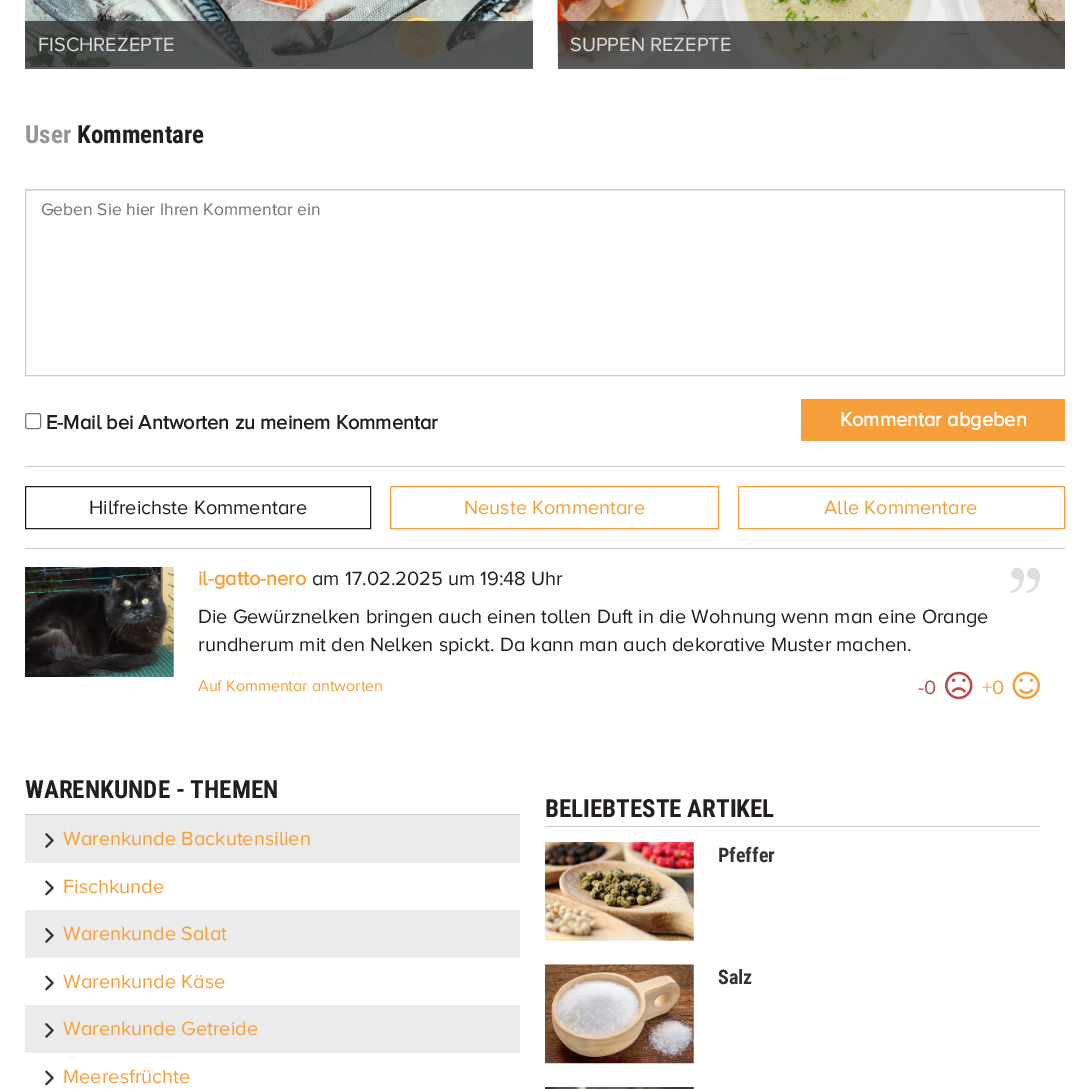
%!PS-Adobe-3.0
%%BoundingBox: 0 0 1089 1089
%%LanguageLevel: 3
%%Pages: 1
%%EndComments
%%BeginProlog
/setalpha { dup .setfillconstantalpha .setstrokeconstantalpha } def
/rrect { 5 dict begin { /r /h /w /y /x } { exch def } forall
  x r add y moveto x w add y 2 copy h add r arct x w add y h add x 1 index r arct
  x y h add x y r arct x y 2 copy exch w add exch r arct closepath end } def
/drawimage { 5 dict begin { /h /w /y /x /name } { exch def } forall
  gsave x y translate w h scale
  w h 8 [w 0 0 h 0 0] name (r) file false 3 colorimage grestore end } def
%%EndProlog
%%BeginSetup
<< /PageSize [1089 1089] /PageUsesTransparency true >> setpagedevice
%%EndSetup
%%Page: 1 1
0 .pushpdf14devicefilter
0 1089 translate 1 -1 scale
4 setmiterlimit
1 setgray
0 0 1089 1089 rectfill
(images/1.raw) 25 0 508 67 drawimage
0.8 setalpha
0.2 setgray
25 21 508 48 rectfill
1 setalpha
(images/2.raw) 557 0 508 67 drawimage
0.8 setalpha
558 21 507 48 rectfill
1 setalpha
0.925 setgray
26 190 1038 1 rectfill
0.8 setgray
25.5 189.5 1039 186 rectstroke
0.463 setgray
25.5 413.5 15 15 2 rrect stroke
0.969 0.624 0.227 setrgbcolor
801 399 264 42 rectfill
0.8 setgray
25 466 1040 1 rectfill
0.137 0.122 0.125 setrgbcolor
25.5 486.5 345 42 rectstroke
0.969 0.624 0.227 setrgbcolor
390.5 486.5 328 42 rectstroke
738.5 486.5 326 42 rectstroke
0.8 setgray
25 548 1040 1 rectfill
(images/3.raw) 25 567 149 110 drawimage
(images/4.raw) 1011 567 29 26 drawimage
(images/5.raw) 945 671 28 29 drawimage
(images/6.raw) 1012 671 28 29 drawimage
25 814 495 1 rectfill
0.925 0.922 0.922 setrgbcolor
25 815 495 48 rectfill
(images/7.raw) 45 833 9 15 drawimage
(images/8.raw) 45 880 9 16 drawimage
25 910 495 48 rectfill
(images/7.raw) 45 928 9 15 drawimage
(images/8.raw) 45 975 9 16 drawimage
25 1005 495 48 rectfill
(images/7.raw) 45 1023 9 15 drawimage
(images/8.raw) 45 1070 9 16 drawimage
0.8 setgray
545 826 495 1 rectfill
(images/9.raw) 545 842 149 99 drawimage
(images/10.raw) 545 964 149 100 drawimage
(images/11.raw) 545 1087 149 2 drawimage
/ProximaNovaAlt-Regular [20 0 0 -20 0 0] selectfont
0.851 0.855 0.851 setrgbcolor
38 51 moveto (FISCHREZEPTE) show
570 51 moveto (SUPPEN REZEPTE) show
/RobotoCondensed-Bold [25 0 0 -25 0 0] selectfont
0.584 setgray
25 143 moveto (User) show
0.137 0.122 0.125 setrgbcolor
77 143 moveto (Kommentare) show
/ProximaNovaAlt-Regular [17.5 0 0 -17.5 0 0] selectfont
0.459 setgray
41 215 moveto (Geben Sie hier Ihren Kommentar ein) show
/ProximaNovaAlt-Bold [20 0 0 -20 0 0] selectfont
0.137 0.122 0.125 setrgbcolor
46 429 moveto (E-Mail bei Antworten zu meinem Kommentar) show
1 setgray
840 426 moveto (Kommentar abgeben) show
/ProximaNovaAlt-Regular [20 0 0 -20 0 0] selectfont
0.137 0.122 0.125 setrgbcolor
89 514 moveto (Hilfreichste Kommentare) show
0.969 0.624 0.227 setrgbcolor
464 514 moveto (Neuste Kommentare) show
824 514 moveto (Alle Kommentare) show
/ProximaNovaAlt-Bold [20 0 0 -20 0 0] selectfont
198 585 moveto (il-gatto-nero) show
/ProximaNovaAlt-Regular [20 0 0 -20 0 0] selectfont
0.137 0.122 0.125 setrgbcolor
312 585 moveto (am 17.02.2025 um 19:48 Uhr) show
198 623 moveto (Die Gewürznelken bringen auch einen tollen Duft in die Wohnung wenn man eine Orange) show
198 651 moveto (rundherum mit den Nelken spickt. Da kann man auch dekorative Muster machen.) show
/ProximaNovaAlt-Regular [16 0 0 -16 0 0] selectfont
0.969 0.624 0.227 setrgbcolor
198 691 moveto (Auf Kommentar antworten) show
/ProximaNovaAlt-Regular [20 0 0 -20 0 0] selectfont
0.725 0.29 0.282 setrgbcolor
918 694 moveto (-0) show
0.969 0.624 0.227 setrgbcolor
982 694 moveto (+0) show
/RobotoCondensed-Bold [25 0 0 -25 0 0] selectfont
0.137 0.122 0.125 setrgbcolor
25 798 moveto (WARENKUNDE - THEMEN) show
/ProximaNovaAlt-Regular [20 0 0 -20 0 0] selectfont
0.969 0.624 0.227 setrgbcolor
63 845 moveto (Warenkunde Backutensilien) show
63 893 moveto (Fischkunde) show
63 940 moveto (Warenkunde Salat) show
63 988 moveto (Warenkunde Käse) show
63 1035 moveto (Warenkunde Getreide) show
63 1083 moveto (Meeresfrüchte) show
/RobotoCondensed-Bold [25 0 0 -25 0 0] selectfont
0.137 0.122 0.125 setrgbcolor
545 817 moveto (BELIEBTESTE ARTIKEL) show
/RobotoCondensed-Bold [20 0 0 -20 0 0] selectfont
0.2 setgray
718 862 moveto (Pfeffer) show
718 984 moveto (Salz) show
.poppdf14devicefilter showpage
%%EOF
